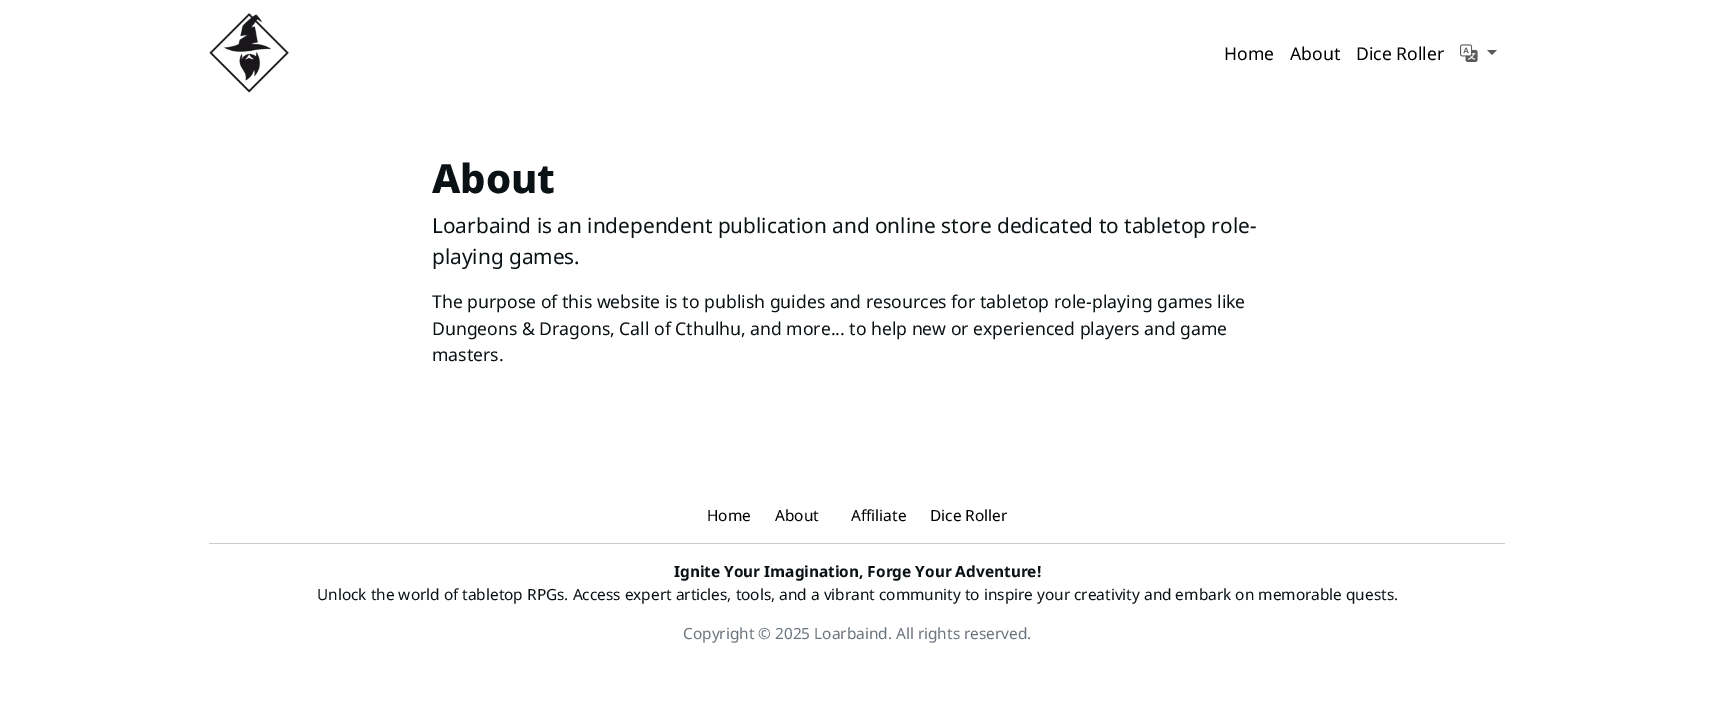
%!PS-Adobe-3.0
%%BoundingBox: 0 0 1714 716
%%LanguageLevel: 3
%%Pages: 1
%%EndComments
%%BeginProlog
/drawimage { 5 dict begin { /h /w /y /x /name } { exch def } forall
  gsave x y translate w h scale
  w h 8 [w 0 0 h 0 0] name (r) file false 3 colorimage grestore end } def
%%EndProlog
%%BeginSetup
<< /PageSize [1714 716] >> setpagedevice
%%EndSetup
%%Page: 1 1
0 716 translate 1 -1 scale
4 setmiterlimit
1 setgray
0 0 1714 716 rectfill
(images/1.raw) 209 13 80 80 drawimage
(images/2.raw) 1460 44 18 18 drawimage
0.349 setgray
newpath 1487 50 moveto 1497 50 lineto 1492 55 lineto closepath fill
0.8 setgray
209 543 1296 1 rectfill
/NotoSans-Regular [17.6 0 0 -17.6 0 0] selectfont
0 setgray
1224 60 moveto (Home) show
1290 60 moveto (About) show
1356 60 moveto (Dice Roller) show
/NotoSans-ExtraBold [40 0 0 -40 0 0] selectfont
0.043 0.071 0.082 setrgbcolor
432 193 moveto (About) show
/NotoSans-Regular [20.8 0 0 -20.8 0 0] selectfont
432 233 moveto (Loarbaind is an independent publication and online store dedicated to tabletop role-) show
432 264 moveto (playing games.) show
/NotoSans-Regular [17.6 0 0 -17.6 0 0] selectfont
432 308 moveto (The purpose of this website is to publish guides and resources for tabletop role-playing games like) show
432 335 moveto (Dungeons & Dragons, Call of Cthulhu, and more... to help new or experienced players and game) show
432 361 moveto (masters.) show
/NotoSans-Regular [15.4 0 0 -15.4 0 0] selectfont
0 setgray
707 521 moveto (Home) show
775 521 moveto (About) show
851 521 moveto (Affiliate) show
930 521 moveto (Dice Roller) show
/NotoSans-Bold [15.4 0 0 -15.4 0 0] selectfont
0.043 0.071 0.082 setrgbcolor
674 577 moveto (Ignite Your Imagination, Forge Your Adventure!) show
/NotoSans-Regular [15.4 0 0 -15.4 0 0] selectfont
317 600 moveto (Unlock the world of tabletop RPGs. Access expert articles, tools, and a vibrant community to inspire your creativity and embark on memorable quests.) show
0.424 0.459 0.49 setrgbcolor
683 639 moveto (Copyright © 2025 Loarbaind. All rights reserved.) show
showpage
%%EOF
